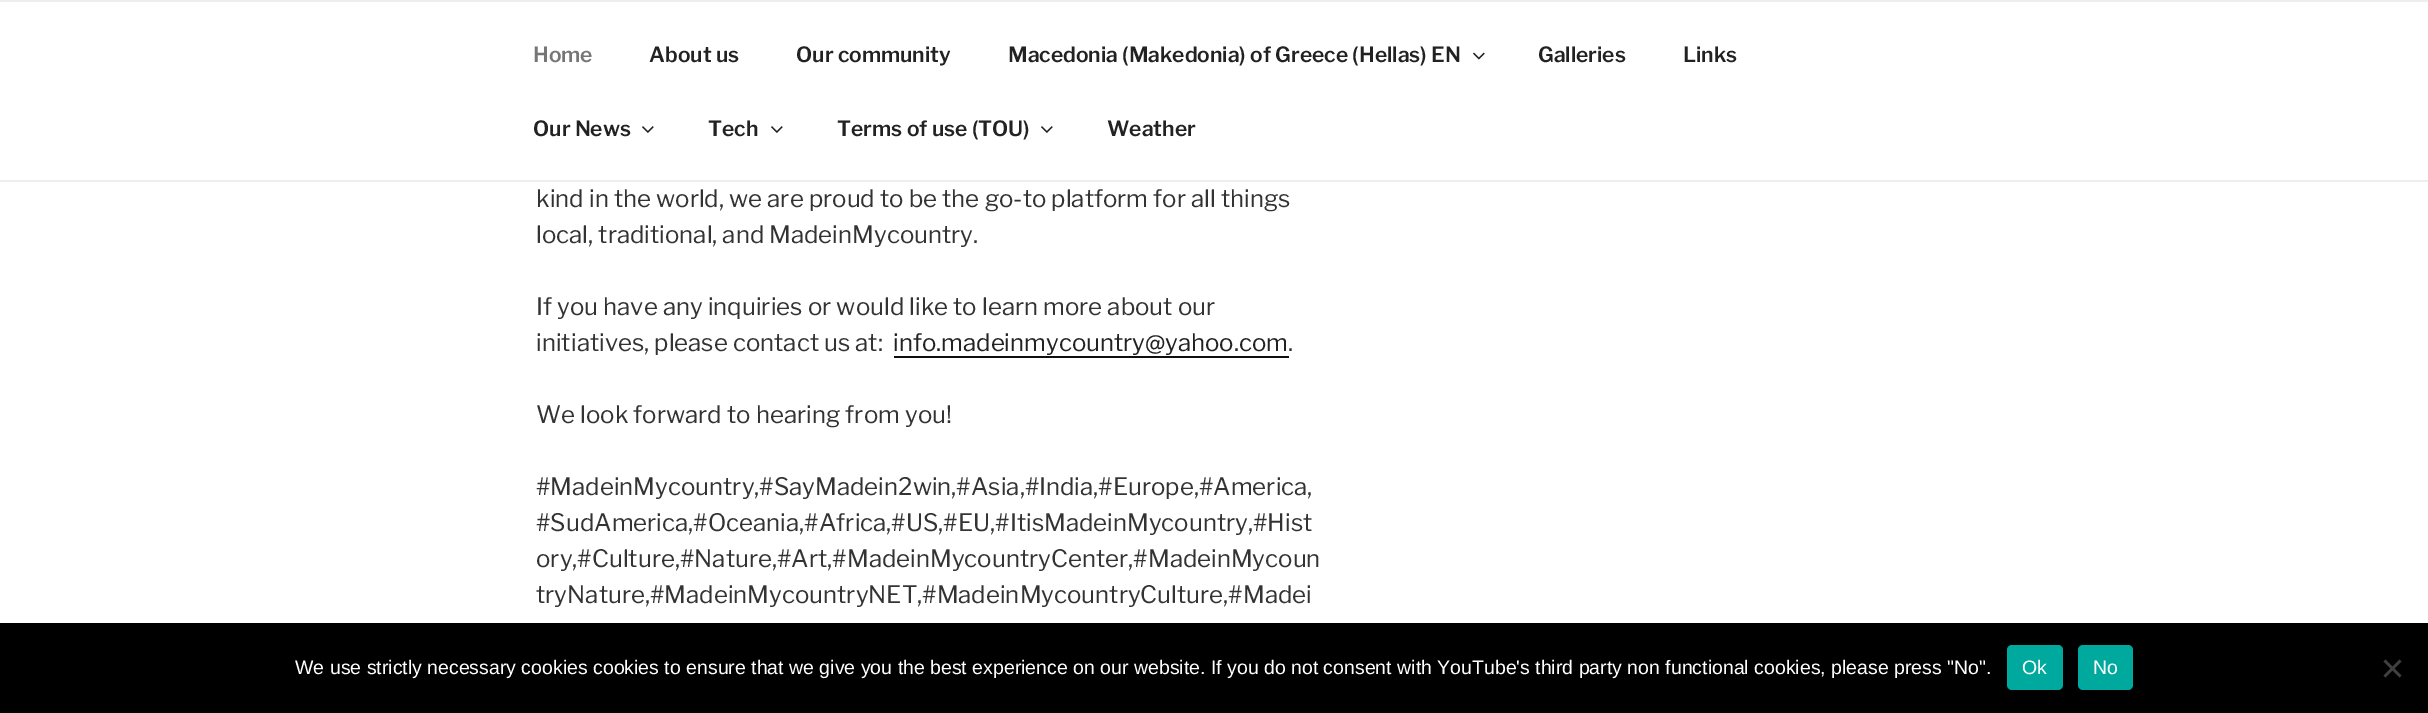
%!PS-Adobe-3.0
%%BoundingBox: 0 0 2428 713
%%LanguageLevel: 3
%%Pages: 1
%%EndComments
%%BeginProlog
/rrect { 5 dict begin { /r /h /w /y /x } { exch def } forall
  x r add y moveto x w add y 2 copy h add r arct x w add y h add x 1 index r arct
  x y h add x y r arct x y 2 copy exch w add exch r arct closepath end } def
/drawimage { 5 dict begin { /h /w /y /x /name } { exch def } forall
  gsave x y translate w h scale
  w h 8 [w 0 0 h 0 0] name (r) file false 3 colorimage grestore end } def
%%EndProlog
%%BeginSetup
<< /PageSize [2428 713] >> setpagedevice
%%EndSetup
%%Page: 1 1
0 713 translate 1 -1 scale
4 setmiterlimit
1 setgray
0 0 2428 713 rectfill
0.933 setgray
0 0 2428 2 rectfill
0 180 2428 2 rectfill
(images/1.raw) 1473 52 12 8 drawimage
(images/2.raw) 642 126 12 7 drawimage
(images/2.raw) 771 126 12 7 drawimage
(images/2.raw) 1041 126 12 7 drawimage
0.059 setgray
894 356 395 2 rectfill
0 setgray
0 623 2428 90 rectfill
0 0.663 0.616 setrgbcolor
2007 645 56 45 5 rrect fill
2078 645 55 45 5 rrect fill
0.251 setgray
newpath 2399.5 659.5 moveto 2401.5 661.5 lineto 2385.5 677.5 lineto 2383.5 675.5 lineto closepath fill
newpath 2383.5 661.5 moveto 2385.5 659.5 lineto 2401.5 675.5 lineto 2399.5 677.5 lineto closepath fill
/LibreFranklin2-Thin [21 0 0 -21 0 0] selectfont
0.463 setgray
533 62 moveto (Home) show
0.133 setgray
649 62 moveto (About us) show
796 62 moveto (Our community) show
1008 62 moveto (Macedonia \(Makedonia\) of Greece \(Hellas\) EN) show
1538 62 moveto (Galleries) show
1683 62 moveto (Links) show
533 136 moveto (Our News) show
708 136 moveto (Tech) show
837 136 moveto (Terms of use \(TOU\)) show
1107 136 moveto (Weather) show
/LibreFranklin-Thin [24 0 0 -24 0 0] selectfont
0.2 setgray
536 207 moveto (kind in the world, we are proud to be the go-to platform for all things) show
536 243 moveto (local, traditional, and MadeinMycountry.) show
536 315 moveto (If you have any inquiries or would like to learn more about our) show
536 351 moveto (initiatives, please contact us at:) show
0.133 setgray
893 351 moveto (info.madeinmycountry@yahoo.com) show
0.2 setgray
1288 351 moveto (.) show
536 423 moveto (We look forward to hearing from you!) show
536 495 moveto (#MadeinMycountry,#SayMadein2win,#Asia,#India,#Europe,#America,) show
536 531 moveto (#SudAmerica,#Oceania,#Africa,#US,#EU,#ItisMadeinMycountry,#Hist) show
536 567 moveto (ory,#Culture,#Nature,#Art,#MadeinMycountryCenter,#MadeinMycoun) show
536 603 moveto (tryNature,#MadeinMycountryNET,#MadeinMycountryCulture,#Madei) show
/LiberationSans-Regular [19.5 0 0 -19.5 0 0] selectfont
1 setgray
295 674 moveto (We use strictly necessary cookies cookies to ensure that we give you the best experience on our website. If you do not consent with YouTube's third party non functional cookies, please press "No".) show
2022 674 moveto (Ok) show
2093 674 moveto (No) show
showpage
%%EOF
